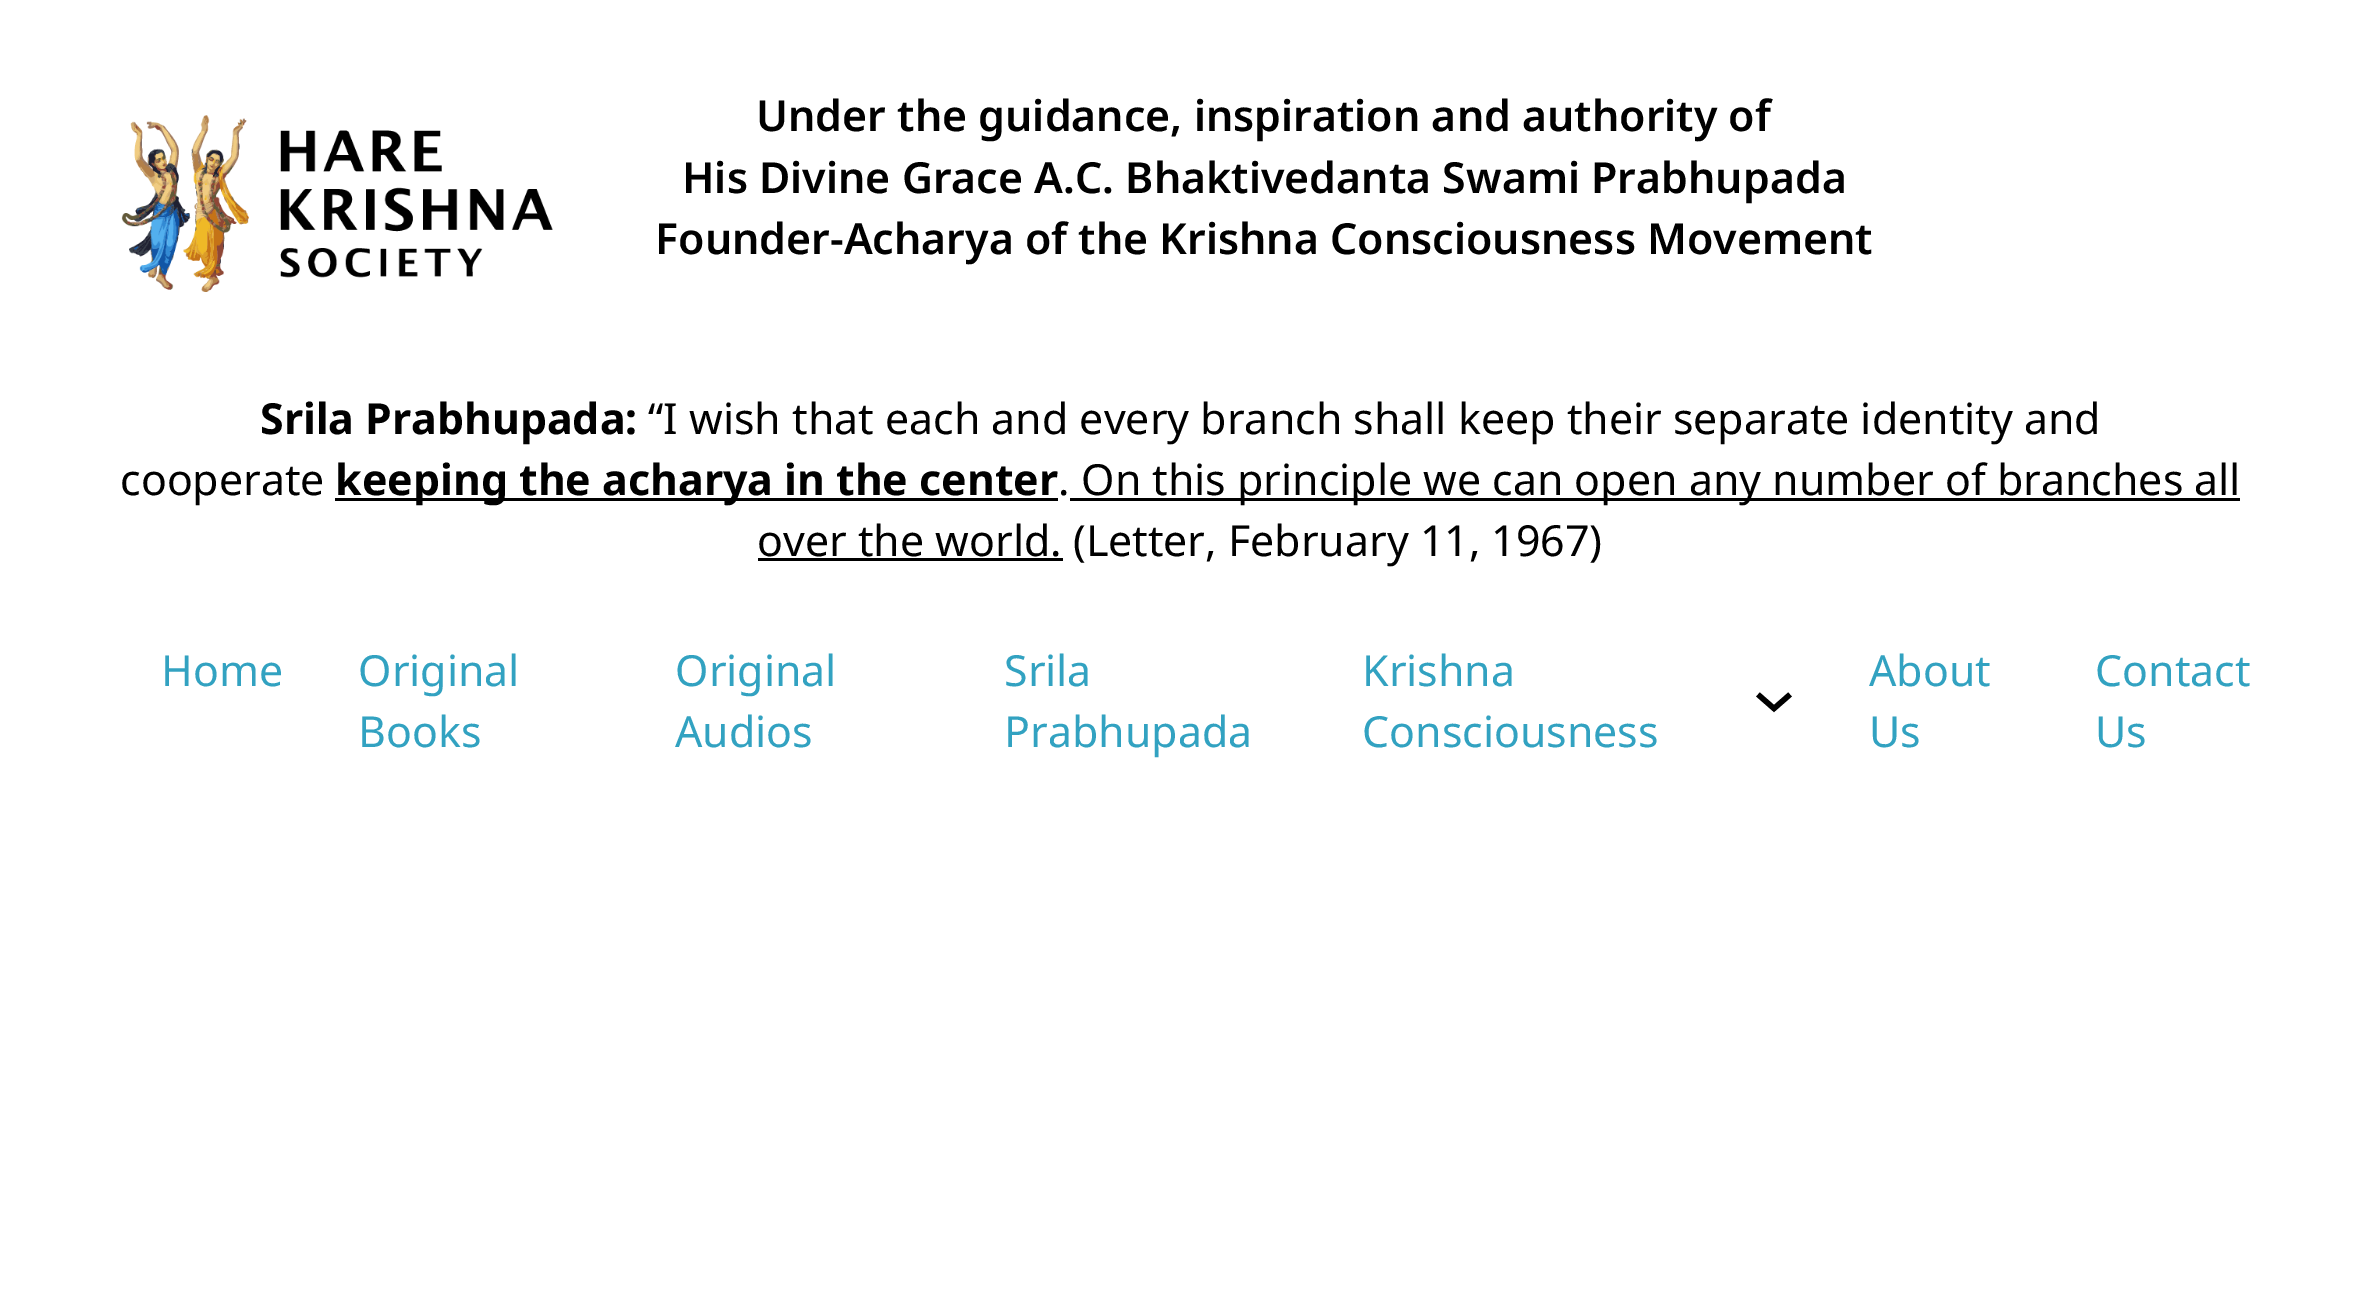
%!PS-Adobe-3.0
%%BoundingBox: 0 0 2360 1302
%%LanguageLevel: 3
%%Pages: 1
%%EndComments
%%BeginProlog
/drawimage { 5 dict begin { /h /w /y /x /name } { exch def } forall
  gsave x y translate w h scale
  w h 8 [w 0 0 h 0 0] name (r) file false 3 colorimage grestore end } def
%%EndProlog
%%BeginSetup
<< /PageSize [2360 1302] >> setpagedevice
%%EndSetup
%%Page: 1 1
0 1302 translate 1 -1 scale
4 setmiterlimit
1 setgray
0 0 2360 1302 rectfill
(images/1.raw) 121 115 432 177 drawimage
0 setgray
335 498 723 3 rectfill
1070 498 1170 3 rectfill
758 558 305 3 rectfill
5.4 setlinewidth
newpath 1758 694.5 moveto 1774 708.5 lineto 1790 694.5 lineto stroke
/NotoSans-SemiBold [42.9 0 0 -42.9 0 0] selectfont
756 131 moveto (Under the guidance, inspiration and authority of) show
682 193 moveto (His Divine Grace A.C. Bhaktivedanta Swami Prabhupada) show
655 254 moveto (Founder-Acharya of the Krishna Consciousness Movement) show
/NotoSans-Bold [42.9 0 0 -42.9 0 0] selectfont
260 434 moveto (Srila Prabhupada:) show
/NotoSans-Regular [42.9 0 0 -42.9 0 0] selectfont
648 434 moveto (“I wish that each and every branch shall keep their separate identity and) show
120 495 moveto (cooperate) show
/NotoSans-Bold [42.9 0 0 -42.9 0 0] selectfont
335 495 moveto (keeping the acharya in the center) show
/NotoSans-Regular [42.9 0 0 -42.9 0 0] selectfont
1058 495 moveto (.) show
1081 495 moveto (On this principle we can open any number of branches all) show
757 556 moveto (over the world. \(Letter, February 11, 1967\)) show
0.196 0.635 0.757 setrgbcolor
161 686 moveto (Home) show
358 686 moveto (Original) show
358 747 moveto (Books) show
675 686 moveto (Original) show
675 747 moveto (Audios) show
1004 686 moveto (Srila) show
1004 747 moveto (Prabhupada) show
1362 686 moveto (Krishna) show
1362 747 moveto (Consciousness) show
1869 686 moveto (About) show
1869 747 moveto (Us) show
2095 686 moveto (Contact) show
2095 747 moveto (Us) show
showpage
%%EOF
